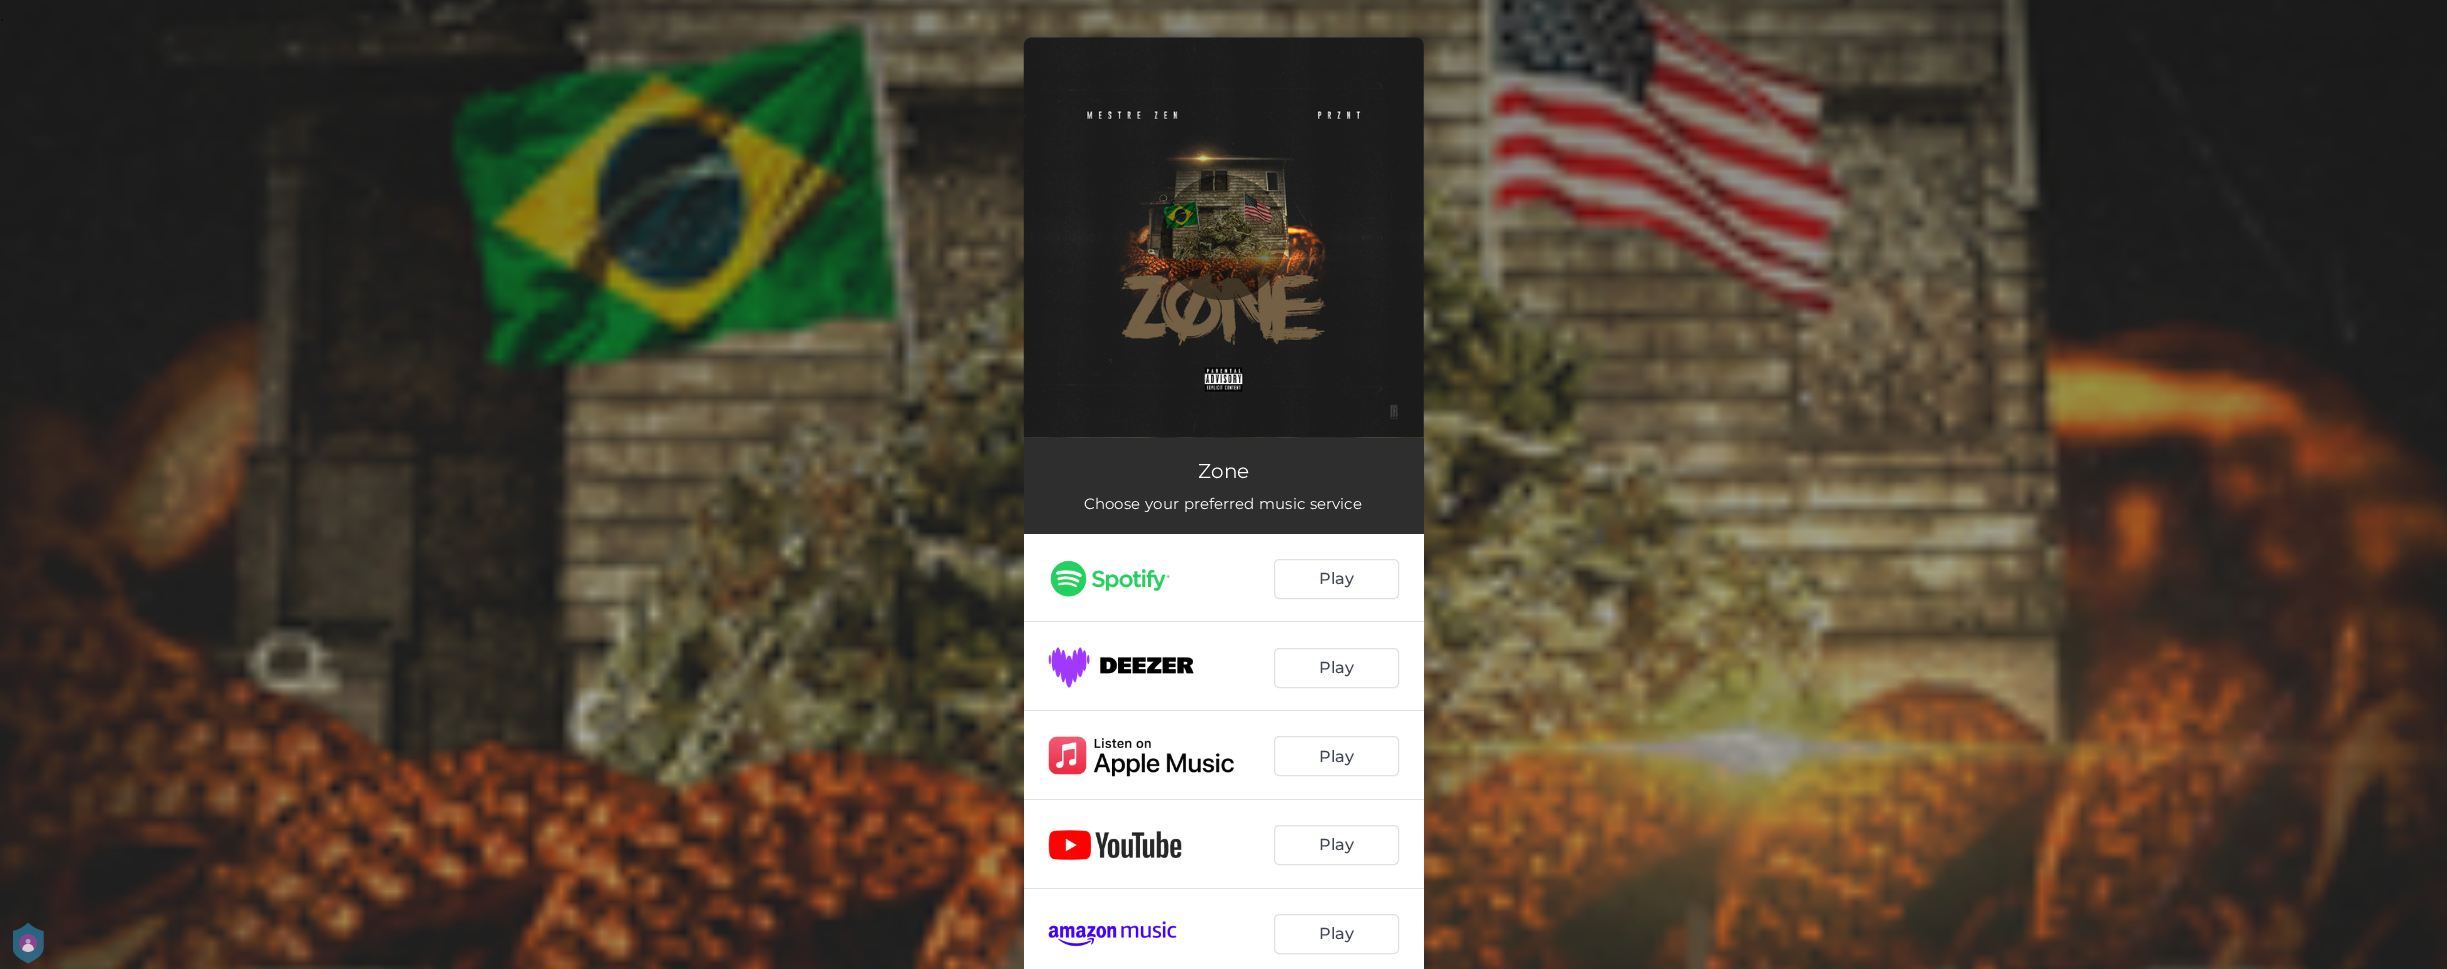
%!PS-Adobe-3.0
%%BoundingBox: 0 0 2447 969
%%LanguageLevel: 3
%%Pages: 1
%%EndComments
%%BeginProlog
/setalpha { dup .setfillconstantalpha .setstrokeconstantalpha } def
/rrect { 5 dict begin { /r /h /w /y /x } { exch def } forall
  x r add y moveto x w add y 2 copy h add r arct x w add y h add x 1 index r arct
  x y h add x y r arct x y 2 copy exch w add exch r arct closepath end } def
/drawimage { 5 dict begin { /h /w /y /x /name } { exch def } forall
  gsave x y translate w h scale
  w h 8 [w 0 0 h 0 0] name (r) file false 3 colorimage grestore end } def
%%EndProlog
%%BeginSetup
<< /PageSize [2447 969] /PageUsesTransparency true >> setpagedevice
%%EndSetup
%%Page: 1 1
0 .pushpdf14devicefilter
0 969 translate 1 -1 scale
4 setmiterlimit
1 setgray
0 0 2447 969 rectfill
(images/2.raw) 0 0 2447 969 drawimage
(images/1.raw) 13 923 31 41 drawimage
(images/3.raw) 1023 37 401 401 drawimage
0.45 setalpha
0 setgray
newpath 1223.5 237.5 62.5 0 360 arc closepath fill
1 setalpha
0.18 setgray
1024 438 400 96 rectfill
1 setgray
1024 534 400 435 rectfill
0.882 0.882 0.894 setrgbcolor
1024 621 400 1 rectfill
(images/4.raw) 1050 560 120 37 drawimage
1274.5 559.5 124 39 4.5 rrect stroke
1024 710 400 1 rectfill
(images/5.raw) 1048 647 146 41 drawimage
1274.5 648.5 124 39 4.5 rrect stroke
1024 799 400 1 rectfill
(images/6.raw) 1048 736 186 41 drawimage
1274.5 736.5 124 39 4.5 rrect stroke
1024 888 400 1 rectfill
(images/7.raw) 1048 830 134 30 drawimage
1274.5 825.5 124 39 4.5 rrect stroke
(images/8.raw) 1048 921 129 26 drawimage
1274.5 914.5 124 39 4.5 rrect stroke
/Montserrat-Regular [20 0 0 -20 0 0] selectfont
1 setgray
1198 478 moveto (Zone) show
/Montserrat-Regular [15 0 0 -15 0 0] selectfont
1084 509 moveto 1 0 32 (Choose your preferred music service) widthshow
/Montserrat-Medium [16 0 0 -16 0 0] selectfont
0.255 0.278 0.329 setrgbcolor
1319 584 moveto (Play) show
1319 673 moveto (Play) show
1319 762 moveto (Play) show
1319 850 moveto (Play) show
1319 939 moveto (Play) show
.poppdf14devicefilter showpage
%%EOF
